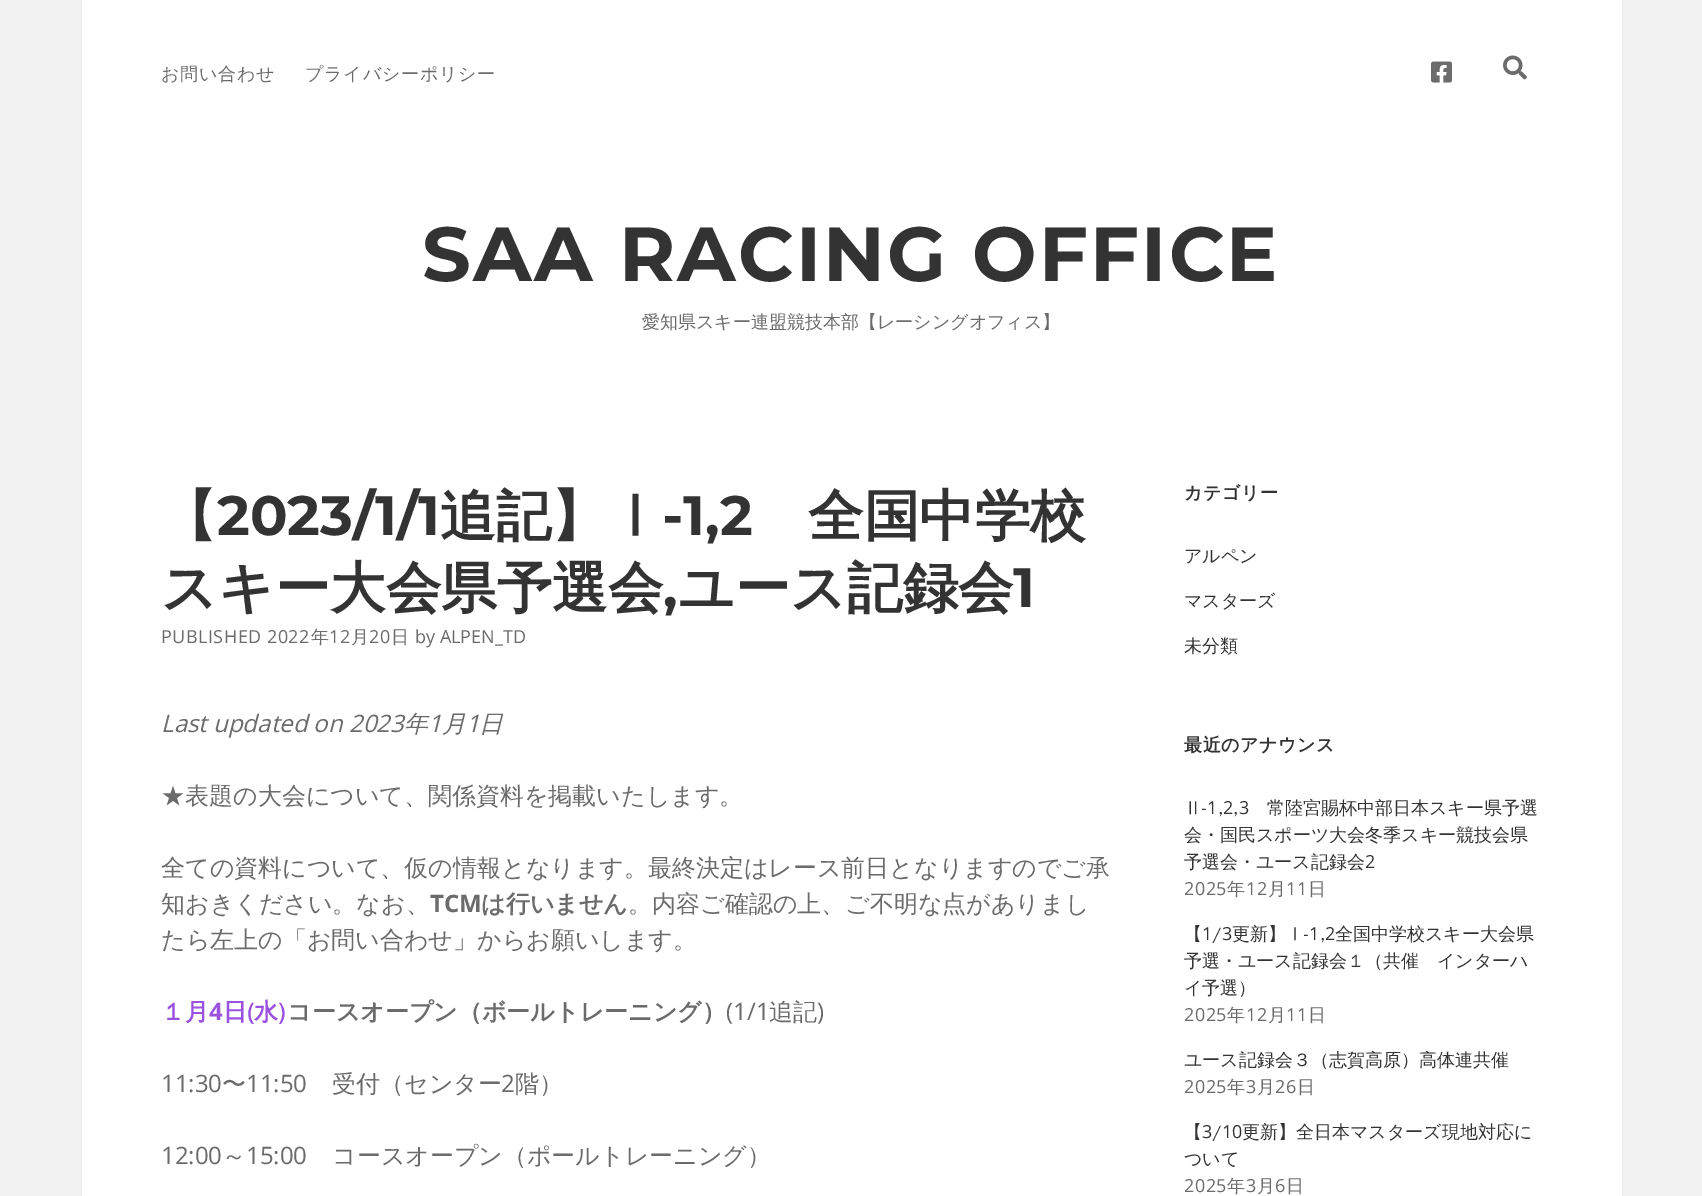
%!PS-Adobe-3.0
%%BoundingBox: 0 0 1702 1196
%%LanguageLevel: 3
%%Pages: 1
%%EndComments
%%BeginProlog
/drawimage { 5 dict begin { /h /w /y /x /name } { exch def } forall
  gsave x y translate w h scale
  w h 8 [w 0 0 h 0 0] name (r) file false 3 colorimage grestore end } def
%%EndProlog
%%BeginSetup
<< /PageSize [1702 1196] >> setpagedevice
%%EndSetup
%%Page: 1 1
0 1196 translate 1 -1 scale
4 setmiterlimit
0.949 setgray
0 0 1702 1196 rectfill
1 setgray
82 0 1540 1196 rectfill
0.929 setgray
1622 0 2 1196 rectfill
80 0 2 1196 rectfill
(images/1.raw) 1431 61 21 22 drawimage
(images/2.raw) 1503 55 24 25 drawimage
/WenQuanYiZenHei-Medium [18 0 0 -18 0 0] selectfont
0.42 setgray
161 80 moveto 0.75 0 (お問い合わせ) ashow
305 80 moveto 0.75 0 (プライバシーポリシー) ashow
/Montserrat-Bold [76.5 0 0 -76.5 0 0] selectfont
0.2 setgray
422 281 moveto 2.25 0 (SAA RACING OFFICE) ashow
/WenQuanYiZenHei-Medium [18 0 0 -18 0 0] selectfont
0.42 setgray
642 328 moveto (愛知県スキー連盟競技本部【レーシングオフィス】) show
/WenQuanYiZenHei-Bold [55.5 0 0 -55.5 0 0] selectfont
0.2 setgray
161 535 moveto (【) show
/Montserrat-Bold [55.5 0 0 -55.5 0 0] selectfont
217 535 moveto (2023/1/1) show
/WenQuanYiZenHei-Bold [55.5 0 0 -55.5 0 0] selectfont
440 535 moveto (追記】Ⅰ) show
/Montserrat-Bold [55.5 0 0 -55.5 0 0] selectfont
662 535 moveto (-1,2) show
/WenQuanYiZenHei-Bold [55.5 0 0 -55.5 0 0] selectfont
808 535 moveto (全国中学校) show
161 607 moveto (スキー大会県予選会) show
/Montserrat-Bold [55.5 0 0 -55.5 0 0] selectfont
663 607 moveto (,) show
/WenQuanYiZenHei-Bold [55.5 0 0 -55.5 0 0] selectfont
678 607 moveto (ユース記録会) show
/Montserrat-Bold [55.5 0 0 -55.5 0 0] selectfont
1013 607 moveto (1) show
/OpenSans-Regular [18 0 0 -18 0 0] selectfont
0.42 setgray
161 643 moveto 0.5 0 (PUBLISHED 2022) ashow
/WenQuanYiZenHei-Medium [18 0 0 -18 0 0] selectfont
311 643 moveto 0.5 0 (年) ashow
/OpenSans-Regular [18 0 0 -18 0 0] selectfont
329 643 moveto 0.5 0 (12) ashow
/WenQuanYiZenHei-Medium [18 0 0 -18 0 0] selectfont
351 643 moveto 0.5 0 (月) ashow
/OpenSans-Regular [18 0 0 -18 0 0] selectfont
369 643 moveto 0.5 0 (20) ashow
/WenQuanYiZenHei-Medium [18 0 0 -18 0 0] selectfont
391 643 moveto 0.5 0 (日) ashow
/OpenSans-Regular [18 0 0 -18 0 0] selectfont
415 643 moveto (by ALPEN_TD) show
/OpenSans-Italic [24 0 0 -24 0 0] selectfont
161 732 moveto (Last updated on 2023) show
/WenQuanYiZenHei-MediumItalic [24 0 0 -24 0 0] selectfont
404 732 moveto (年) show
/OpenSans-Italic [24 0 0 -24 0 0] selectfont
428 732 moveto (1) show
/WenQuanYiZenHei-MediumItalic [24 0 0 -24 0 0] selectfont
442 732 moveto (月) show
/OpenSans-Italic [24 0 0 -24 0 0] selectfont
466 732 moveto (1) show
/WenQuanYiZenHei-MediumItalic [24 0 0 -24 0 0] selectfont
479 732 moveto (日) show
/WenQuanYiZenHei-Medium [24 0 0 -24 0 0] selectfont
161 804 moveto (★表題の大会について、関係資料を掲載いたします。) show
161 876 moveto (全ての資料について、仮の情報となります。最終決定はレース前日となりますのでご承) show
161 912 moveto (知おきください。なお、) show
/OpenSans-Bold [24 0 0 -24 0 0] selectfont
430 912 moveto (TCM) show
/WenQuanYiZenHei-Bold [24 0 0 -24 0 0] selectfont
481 912 moveto (は行いません) show
/WenQuanYiZenHei-Medium [24 0 0 -24 0 0] selectfont
628 912 moveto (。内容ご確認の上、ご不明な点がありまし) show
161 948 moveto (たら左上の「お問い合わせ」からお願いします。) show
/WenQuanYiZenHei-Bold [24 0 0 -24 0 0] selectfont
0.608 0.318 0.878 setrgbcolor
161 1020 moveto (１月) show
/OpenSans-Bold [24 0 0 -24 0 0] selectfont
209 1020 moveto (4) show
/WenQuanYiZenHei-Bold [24 0 0 -24 0 0] selectfont
223 1020 moveto (日\(水\)) show
0.42 setgray
287 1020 moveto (コースオープン（ボールトレーニング）) show
/OpenSans-Regular [24 0 0 -24 0 0] selectfont
726 1020 moveto (\(1/1) show
/WenQuanYiZenHei-Medium [24 0 0 -24 0 0] selectfont
769 1020 moveto (追記) show
/OpenSans-Regular [24 0 0 -24 0 0] selectfont
817 1020 moveto (\)) show
161 1092 moveto (11:30) show
/WenQuanYiZenHei-Medium [24 0 0 -24 0 0] selectfont
222 1092 moveto (〜) show
/OpenSans-Regular [24 0 0 -24 0 0] selectfont
246 1092 moveto (11:50) show
/WenQuanYiZenHei-Medium [24 0 0 -24 0 0] selectfont
332 1092 moveto (受付（センター) show
/OpenSans-Regular [24 0 0 -24 0 0] selectfont
501 1092 moveto (2) show
/WenQuanYiZenHei-Medium [24 0 0 -24 0 0] selectfont
515 1092 moveto (階）) show
/OpenSans-Regular [24 0 0 -24 0 0] selectfont
161 1164 moveto (12:00) show
/WenQuanYiZenHei-Medium [24 0 0 -24 0 0] selectfont
222 1164 moveto (～) show
/OpenSans-Regular [24 0 0 -24 0 0] selectfont
246 1164 moveto (15:00) show
/WenQuanYiZenHei-Medium [24 0 0 -24 0 0] selectfont
332 1164 moveto (コースオープン（ポールトレーニング）) show
/WenQuanYiZenHei-Bold [18 0 0 -18 0 0] selectfont
0.2 setgray
1184 499 moveto 0.5 0 (カテゴリー) ashow
/WenQuanYiZenHei-Medium [18 0 0 -18 0 0] selectfont
1184 562 moveto (アルペン) show
1184 607 moveto (マスターズ) show
1184 652 moveto (未分類) show
/WenQuanYiZenHei-Bold [18 0 0 -18 0 0] selectfont
1184 751 moveto 0.5 0 (最近のアナウンス) ashow
/WenQuanYiZenHei-Medium [18 0 0 -18 0 0] selectfont
1184 814 moveto (Ⅱ-) show
/OpenSans-Regular [18 0 0 -18 0 0] selectfont
1207 814 moveto (1) show
/WenQuanYiZenHei-Medium [18 0 0 -18 0 0] selectfont
1218 814 moveto (,) show
/OpenSans-Regular [18 0 0 -18 0 0] selectfont
1223 814 moveto (2) show
/WenQuanYiZenHei-Medium [18 0 0 -18 0 0] selectfont
1233 814 moveto (,) show
/OpenSans-Regular [18 0 0 -18 0 0] selectfont
1239 814 moveto (3) show
/WenQuanYiZenHei-Medium [18 0 0 -18 0 0] selectfont
1267 814 moveto (常陸宮賜杯中部日本スキー県予選) show
1184 841 moveto (会・国民スポーツ大会冬季スキー競技会県) show
1184 868 moveto (予選会・ユース記録会) show
/OpenSans-Regular [18 0 0 -18 0 0] selectfont
1365 868 moveto (2) show
0.42 setgray
1184 895 moveto 0.5 0 (2025) ashow
/WenQuanYiZenHei-Medium [18 0 0 -18 0 0] selectfont
1227 895 moveto 0.5 0 (年) ashow
/OpenSans-Regular [18 0 0 -18 0 0] selectfont
1246 895 moveto 0.5 0 (12) ashow
/WenQuanYiZenHei-Medium [18 0 0 -18 0 0] selectfont
1268 895 moveto 0.5 0 (月) ashow
/OpenSans-Regular [18 0 0 -18 0 0] selectfont
1286 895 moveto 0.5 0 (11) ashow
/WenQuanYiZenHei-Medium [18 0 0 -18 0 0] selectfont
1308 895 moveto 0.5 0 (日) ashow
0.2 setgray
1184 940 moveto (【) show
/OpenSans-Regular [18 0 0 -18 0 0] selectfont
1202 940 moveto (1) show
/WenQuanYiZenHei-Medium [18 0 0 -18 0 0] selectfont
1212 940 moveto (/) show
/OpenSans-Regular [18 0 0 -18 0 0] selectfont
1222 940 moveto (3) show
/WenQuanYiZenHei-Medium [18 0 0 -18 0 0] selectfont
1232 940 moveto (更新】Ⅰ-) show
/OpenSans-Regular [18 0 0 -18 0 0] selectfont
1309 940 moveto (1) show
/WenQuanYiZenHei-Medium [18 0 0 -18 0 0] selectfont
1320 940 moveto (,) show
/OpenSans-Regular [18 0 0 -18 0 0] selectfont
1325 940 moveto (2) show
/WenQuanYiZenHei-Medium [18 0 0 -18 0 0] selectfont
1335 940 moveto (全国中学校スキー大会県) show
1184 967 moveto (予選・ユース記録会１（共催　インターハ) show
1184 994 moveto (イ予選）) show
/OpenSans-Regular [18 0 0 -18 0 0] selectfont
0.42 setgray
1184 1021 moveto 0.5 0 (2025) ashow
/WenQuanYiZenHei-Medium [18 0 0 -18 0 0] selectfont
1227 1021 moveto 0.5 0 (年) ashow
/OpenSans-Regular [18 0 0 -18 0 0] selectfont
1246 1021 moveto 0.5 0 (12) ashow
/WenQuanYiZenHei-Medium [18 0 0 -18 0 0] selectfont
1268 1021 moveto 0.5 0 (月) ashow
/OpenSans-Regular [18 0 0 -18 0 0] selectfont
1286 1021 moveto 0.5 0 (11) ashow
/WenQuanYiZenHei-Medium [18 0 0 -18 0 0] selectfont
1308 1021 moveto 0.5 0 (日) ashow
0.2 setgray
1184 1066 moveto (ユース記録会３（志賀高原）高体連共催) show
/OpenSans-Regular [18 0 0 -18 0 0] selectfont
0.42 setgray
1184 1093 moveto 0.5 0 (2025) ashow
/WenQuanYiZenHei-Medium [18 0 0 -18 0 0] selectfont
1227 1093 moveto 0.5 0 (年) ashow
/OpenSans-Regular [18 0 0 -18 0 0] selectfont
1246 1093 moveto 0.5 0 (3) ashow
/WenQuanYiZenHei-Medium [18 0 0 -18 0 0] selectfont
1257 1093 moveto 0.5 0 (月) ashow
/OpenSans-Regular [18 0 0 -18 0 0] selectfont
1275 1093 moveto 0.5 0 (26) ashow
/WenQuanYiZenHei-Medium [18 0 0 -18 0 0] selectfont
1297 1093 moveto 0.5 0 (日) ashow
0.2 setgray
1184 1138 moveto (【) show
/OpenSans-Regular [18 0 0 -18 0 0] selectfont
1202 1138 moveto (3) show
/WenQuanYiZenHei-Medium [18 0 0 -18 0 0] selectfont
1212 1138 moveto (/) show
/OpenSans-Regular [18 0 0 -18 0 0] selectfont
1222 1138 moveto (10) show
/WenQuanYiZenHei-Medium [18 0 0 -18 0 0] selectfont
1242 1138 moveto (更新】全日本マスターズ現地対応に) show
1184 1165 moveto (ついて) show
/OpenSans-Regular [18 0 0 -18 0 0] selectfont
0.42 setgray
1184 1192 moveto 0.5 0 (2025) ashow
/WenQuanYiZenHei-Medium [18 0 0 -18 0 0] selectfont
1227 1192 moveto 0.5 0 (年) ashow
/OpenSans-Regular [18 0 0 -18 0 0] selectfont
1246 1192 moveto 0.5 0 (3) ashow
/WenQuanYiZenHei-Medium [18 0 0 -18 0 0] selectfont
1257 1192 moveto 0.5 0 (月) ashow
/OpenSans-Regular [18 0 0 -18 0 0] selectfont
1275 1192 moveto 0.5 0 (6) ashow
/WenQuanYiZenHei-Medium [18 0 0 -18 0 0] selectfont
1286 1192 moveto 0.5 0 (日) ashow
showpage
%%EOF
